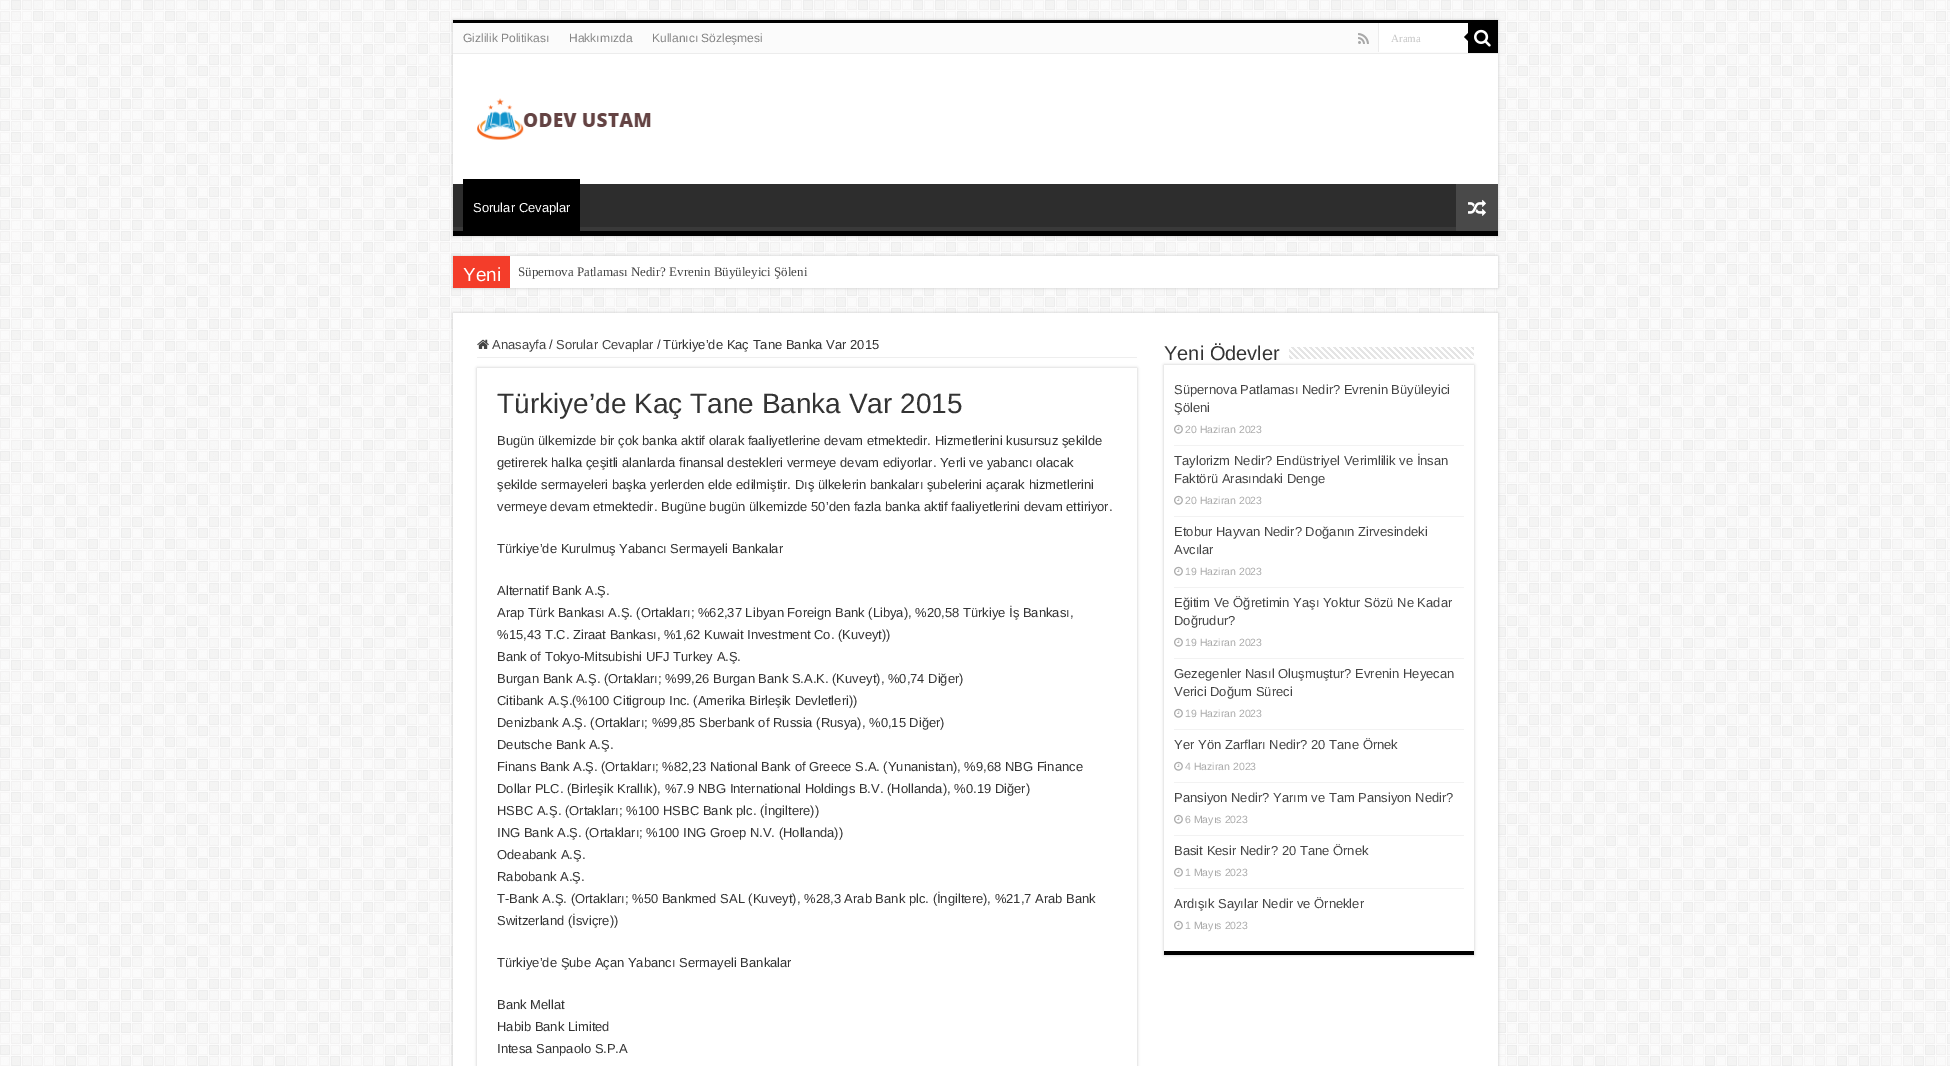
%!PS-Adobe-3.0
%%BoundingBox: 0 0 1950 1066
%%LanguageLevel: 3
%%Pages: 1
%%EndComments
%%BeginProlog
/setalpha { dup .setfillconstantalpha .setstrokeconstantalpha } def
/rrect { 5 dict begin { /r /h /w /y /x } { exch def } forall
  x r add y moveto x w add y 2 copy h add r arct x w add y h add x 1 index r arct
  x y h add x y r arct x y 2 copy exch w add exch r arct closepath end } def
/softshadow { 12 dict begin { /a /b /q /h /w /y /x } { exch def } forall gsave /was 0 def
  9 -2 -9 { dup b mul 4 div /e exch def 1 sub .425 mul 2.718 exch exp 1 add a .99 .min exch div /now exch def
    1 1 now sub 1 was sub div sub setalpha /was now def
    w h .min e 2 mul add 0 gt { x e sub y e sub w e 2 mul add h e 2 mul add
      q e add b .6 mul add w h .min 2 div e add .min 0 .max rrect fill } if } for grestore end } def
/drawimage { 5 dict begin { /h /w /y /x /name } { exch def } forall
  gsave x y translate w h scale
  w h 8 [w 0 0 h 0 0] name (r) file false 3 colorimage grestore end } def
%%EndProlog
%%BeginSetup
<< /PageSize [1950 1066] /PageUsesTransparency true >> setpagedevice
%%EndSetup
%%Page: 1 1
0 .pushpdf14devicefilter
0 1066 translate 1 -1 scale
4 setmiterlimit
1 setgray
0 0 1950 1066 rectfill
(images/1.raw) 0 0 1950 1066 drawimage
0.792 setgray
453 20 1045 216 0 1.5 1 softshadow
1 setgray
453 54 1045 130 rectfill
0 setgray
453 20 1045 3 rectfill
0.984 setgray
453 23 1015 30 rectfill
0.925 setgray
453 53 1045 1 rectfill
(images/2.raw) 1358 33 11 11 drawimage
1 setgray
1379 23 89 29 rectfill
0.925 setgray
1378 23 1 29 rectfill
0 setgray
1468 23 30 30 rectfill
(images/3.raw) 1474 29 17 18 drawimage
newpath 1468 33 moveto 1468 41 lineto 1464 37 lineto closepath fill
(images/4.raw) 477 98 174 42 drawimage
0.176 setgray
453 184 1003 43 rectfill
gsave
453 184 1045 47 rectclip
0.224 setgray
newpath 354 85 moveto 1597 85 lineto 1597 330 lineto 354 330 lineto closepath 452 178 moveto 1498 178 lineto 1498 218 lineto 1498 219 1499 227 1497 227 curveto 452 227 lineto 451 226 lineto 451 178 lineto closepath eofill
grestore
0 setgray
453 231 1045 5 rectfill
463 179 117 52 rectfill
0.286 setgray
1456 184 42 47 rectfill
(images/5.raw) 1468 199 18 17 drawimage
0.792 setgray
453 256 1045 32 0 1.5 1 softshadow
1 setgray
510 256 988 32 rectfill
0.957 0.239 0.165 setrgbcolor
453 256 57 32 rectfill
0.792 setgray
453 313 1045 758 0 1.5 1 softshadow
1 setgray
453 313 1045 753 rectfill
0.933 setgray
477 357 660 1 rectfill
(images/6.raw) 477 339 12 10 drawimage
gsave
newpath 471 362 moveto 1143 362 lineto 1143 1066 lineto 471 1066 lineto closepath 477 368 moveto 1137 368 lineto 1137 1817 lineto 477 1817 lineto closepath eoclip newpath
0.792 setgray
477 368 660 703 0 1.5 1 softshadow
grestore
(images/7.raw) 1289 347 185 12 drawimage
gsave
newpath 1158 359 moveto 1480 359 lineto 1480 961 lineto 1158 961 lineto closepath 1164 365 moveto 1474 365 lineto 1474 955 lineto 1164 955 lineto closepath eoclip newpath
0.792 setgray
1164 365 310 590 0 1.5 1 softshadow
grestore
0 setgray
1164 951 310 4 rectfill
0.949 setgray
1174 445 290 1 rectfill
(images/8.raw) 1174 424 9 10 drawimage
1174 516 290 1 rectfill
(images/8.raw) 1174 495 9 10 drawimage
1174 587 290 1 rectfill
(images/8.raw) 1174 566 9 10 drawimage
1174 658 290 1 rectfill
(images/8.raw) 1174 637 9 10 drawimage
1174 729 290 1 rectfill
(images/8.raw) 1174 708 9 10 drawimage
1174 782 290 1 rectfill
(images/8.raw) 1174 761 9 10 drawimage
1174 835 290 1 rectfill
(images/8.raw) 1174 814 9 10 drawimage
1174 888 290 1 rectfill
(images/8.raw) 1174 867 9 10 drawimage
(images/8.raw) 1174 920 9 10 drawimage
/LiberationSans-Regular [12 0 0 -12 0 0] selectfont
0.514 setgray
463 42 moveto (Gizlilik Politikası) show
569 42 moveto (Hakkımızda) show
652 42 moveto (Kullanıcı Sözleşmesi) show
/LiberationSerif-Regular [11 0 0 -11 0 0] selectfont
0.773 setgray
1391 42 moveto (Arama) show
/LiberationSans-Regular [13 0 0 -13 0 0] selectfont
1 setgray
473 212 moveto (Sorular Cevaplar) show
/LiberationSans-Regular [19 0 0 -19 0 0] selectfont
463 281 moveto (Yeni) show
/LiberationSerif-Regular [13 0 0 -13 0 0] selectfont
0.267 setgray
518 276 moveto (Süpernova Patlaması Nedir? Evrenin Büyüleyici Şöleni) show
/LiberationSans-Regular [13 0 0 -13 0 0] selectfont
492 349 moveto (Anasayfa) show
0.2 setgray
549 349 moveto (/) show
0.267 setgray
556 349 moveto (Sorular Cevaplar) show
0.2 setgray
657 349 moveto (/) show
663 349 moveto (Türkiye’de Kaç Tane Banka Var 2015) show
/LiberationSans-Regular [28 0 0 -28 0 0] selectfont
497 413 moveto (Türkiye’de Kaç Tane Banka Var 2015) show
/LiberationSans-Regular [13 0 0 -13 0 0] selectfont
497 445 moveto (Bugün ülkemizde bir çok banka aktif olarak faaliyetlerine devam etmektedir. Hizmetlerini kusursuz şekilde) show
497 467 moveto (getirerek halka çeşitli alanlarda finansal destekleri vermeye devam ediyorlar. Yerli ve yabancı olacak) show
497 489 moveto (şekilde sermayeleri başka yerlerden elde edilmiştir. Dış ülkelerin bankaları şubelerini açarak hizmetlerini) show
497 511 moveto (vermeye devam etmektedir. Bugüne bugün ülkemizde 50’den fazla banka aktif faaliyetlerini devam ettiriyor.) show
497 553 moveto (Türkiye’de Kurulmuş Yabancı Sermayeli Bankalar) show
497 595 moveto (Alternatif Bank A.Ş.) show
497 617 moveto (Arap Türk Bankası A.Ş. \(Ortakları; %62,37 Libyan Foreign Bank \(Libya\), %20,58 Türkiye İş Bankası,) show
497 639 moveto (%15,43 T.C. Ziraat Bankası, %1,62 Kuwait Investment Co. \(Kuveyt\)\)) show
497 661 moveto (Bank of Tokyo-Mitsubishi UFJ Turkey A.Ş.) show
497 683 moveto (Burgan Bank A.Ş. \(Ortakları; %99,26 Burgan Bank S.A.K. \(Kuveyt\), %0,74 Diğer\)) show
497 705 moveto (Citibank A.Ş.\(%100 Citigroup Inc. \(Amerika Birleşik Devletleri\)\)) show
497 727 moveto (Denizbank A.Ş. \(Ortakları; %99,85 Sberbank of Russia \(Rusya\), %0,15 Diğer\)) show
497 749 moveto (Deutsche Bank A.Ş.) show
497 771 moveto (Finans Bank A.Ş. \(Ortakları; %82,23 National Bank of Greece S.A. \(Yunanistan\), %9,68 NBG Finance) show
497 793 moveto (Dollar PLC. \(Birleşik Krallık\), %7.9 NBG International Holdings B.V. \(Hollanda\), %0.19 Diğer\)) show
497 815 moveto (HSBC A.Ş. \(Ortakları; %100 HSBC Bank plc. \(İngiltere\)\)) show
497 837 moveto (ING Bank A.Ş. \(Ortakları; %100 ING Groep N.V. \(Hollanda\)\)) show
497 859 moveto (Odeabank A.Ş.) show
497 881 moveto (Rabobank A.Ş.) show
497 903 moveto (T-Bank A.Ş. \(Ortakları; %50 Bankmed SAL \(Kuveyt\), %28,3 Arab Bank plc. \(İngiltere\), %21,7 Arab Bank) show
497 925 moveto (Switzerland \(İsviçre\)\)) show
497 967 moveto (Türkiye’de Şube Açan Yabancı Sermayeli Bankalar) show
497 1009 moveto (Bank Mellat) show
497 1031 moveto (Habib Bank Limited) show
497 1053 moveto (Intesa Sanpaolo S.P.A) show
/LiberationSans-Regular [20 0 0 -20 0 0] selectfont
1164 360 moveto (Yeni Ödevler) show
/LiberationSans-Regular [13 0 0 -13 0 0] selectfont
0.267 setgray
1174 394 moveto (Süpernova Patlaması Nedir? Evrenin Büyüleyici) show
1174 412 moveto (Şöleni) show
/LiberationSans-Regular [10.5 0 0 -10.5 0 0] selectfont
0.667 setgray
1185 433 moveto (20 Haziran 2023) show
/LiberationSans-Regular [13 0 0 -13 0 0] selectfont
0.267 setgray
1174 465 moveto (Taylorizm Nedir? Endüstriyel Verimlilik ve İnsan) show
1174 483 moveto (Faktörü Arasındaki Denge) show
/LiberationSans-Regular [10.5 0 0 -10.5 0 0] selectfont
0.667 setgray
1185 504 moveto (20 Haziran 2023) show
/LiberationSans-Regular [13 0 0 -13 0 0] selectfont
0.267 setgray
1174 536 moveto (Etobur Hayvan Nedir? Doğanın Zirvesindeki) show
1174 554 moveto (Avcılar) show
/LiberationSans-Regular [10.5 0 0 -10.5 0 0] selectfont
0.667 setgray
1185 575 moveto (19 Haziran 2023) show
/LiberationSans-Regular [13 0 0 -13 0 0] selectfont
0.267 setgray
1174 607 moveto (Eğitim Ve Öğretimin Yaşı Yoktur Sözü Ne Kadar) show
1174 625 moveto (Doğrudur?) show
/LiberationSans-Regular [10.5 0 0 -10.5 0 0] selectfont
0.667 setgray
1185 646 moveto (19 Haziran 2023) show
/LiberationSans-Regular [13 0 0 -13 0 0] selectfont
0.267 setgray
1174 678 moveto (Gezegenler Nasıl Oluşmuştur? Evrenin Heyecan) show
1174 696 moveto (Verici Doğum Süreci) show
/LiberationSans-Regular [10.5 0 0 -10.5 0 0] selectfont
0.667 setgray
1185 717 moveto (19 Haziran 2023) show
/LiberationSans-Regular [13 0 0 -13 0 0] selectfont
0.267 setgray
1174 749 moveto (Yer Yön Zarfları Nedir? 20 Tane Örnek) show
/LiberationSans-Regular [10.5 0 0 -10.5 0 0] selectfont
0.667 setgray
1185 770 moveto (4 Haziran 2023) show
/LiberationSans-Regular [13 0 0 -13 0 0] selectfont
0.267 setgray
1174 802 moveto (Pansiyon Nedir? Yarım ve Tam Pansiyon Nedir?) show
/LiberationSans-Regular [10.5 0 0 -10.5 0 0] selectfont
0.667 setgray
1185 823 moveto (6 Mayıs 2023) show
/LiberationSans-Regular [13 0 0 -13 0 0] selectfont
0.267 setgray
1174 855 moveto (Basit Kesir Nedir? 20 Tane Örnek) show
/LiberationSans-Regular [10.5 0 0 -10.5 0 0] selectfont
0.667 setgray
1185 876 moveto (1 Mayıs 2023) show
/LiberationSans-Regular [13 0 0 -13 0 0] selectfont
0.267 setgray
1174 908 moveto (Ardışık Sayılar Nedir ve Örnekler) show
/LiberationSans-Regular [10.5 0 0 -10.5 0 0] selectfont
0.667 setgray
1185 929 moveto (1 Mayıs 2023) show
.poppdf14devicefilter showpage
%%EOF
